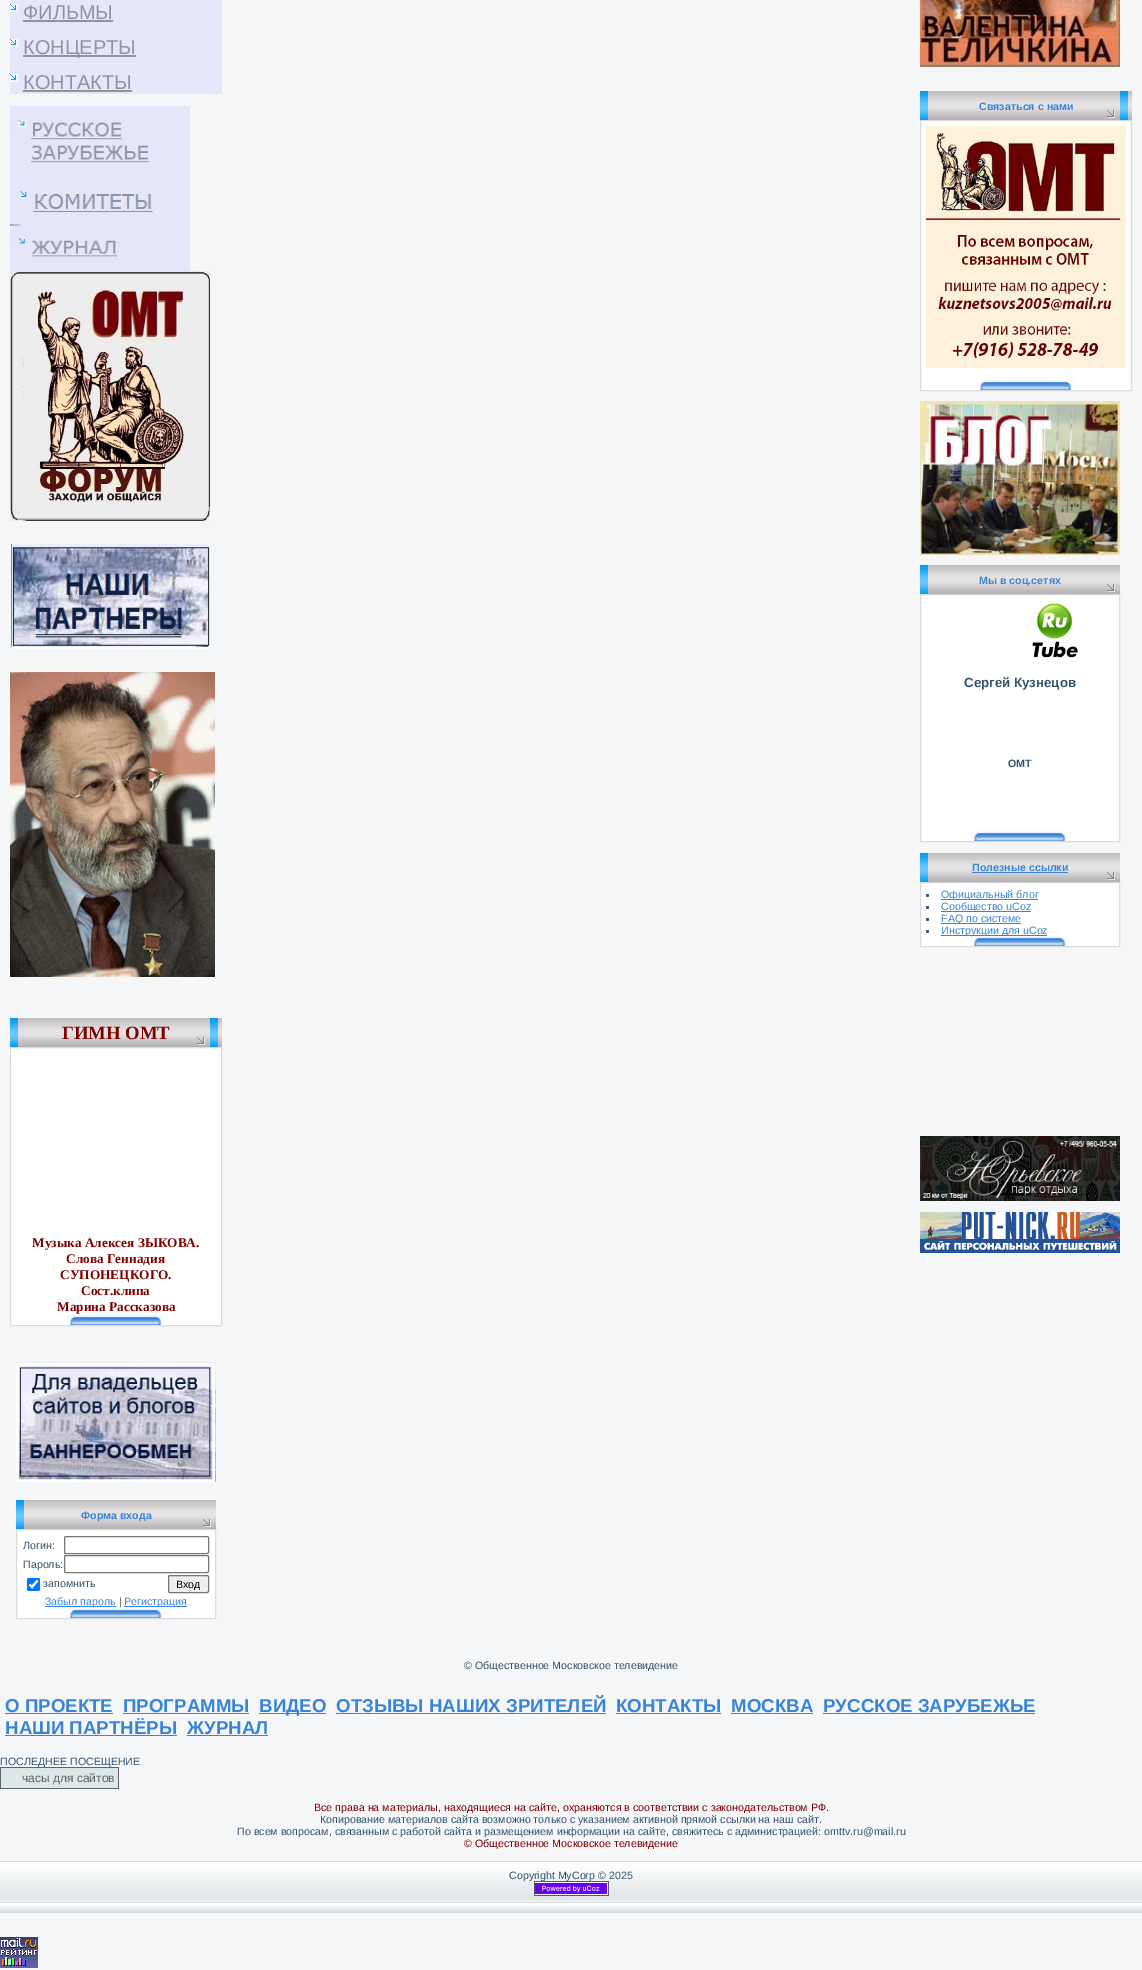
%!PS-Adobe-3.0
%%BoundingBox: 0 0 1142 1970
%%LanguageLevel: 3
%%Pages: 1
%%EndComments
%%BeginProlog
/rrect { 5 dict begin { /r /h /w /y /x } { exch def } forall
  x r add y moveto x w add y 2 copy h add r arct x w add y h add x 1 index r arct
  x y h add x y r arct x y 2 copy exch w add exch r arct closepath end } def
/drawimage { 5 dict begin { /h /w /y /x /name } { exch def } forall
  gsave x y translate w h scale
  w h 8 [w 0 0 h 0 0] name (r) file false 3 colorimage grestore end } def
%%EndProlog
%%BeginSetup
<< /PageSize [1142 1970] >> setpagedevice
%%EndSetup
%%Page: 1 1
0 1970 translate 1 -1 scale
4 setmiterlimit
0.961 0.965 0.969 setrgbcolor
0 0 1142 1970 rectfill
0.902 0.902 0.98 setrgbcolor
10 0 212 94 rectfill
(images/1.raw) 10 4 8 8 drawimage
0.553 0.58 0.62 setrgbcolor
23 20 90 2 rectfill
(images/1.raw) 10 39 8 8 drawimage
23 55 113 2 rectfill
(images/1.raw) 10 74 8 8 drawimage
23 90 109 2 rectfill
(images/2.raw) 10 106 180 70 drawimage
(images/3.raw) 10 176 180 50 drawimage
(images/4.raw) 10 226 180 45 drawimage
(images/5.raw) 10 271 200 250 drawimage
(images/6.raw) 11 544 200 105 drawimage
(images/7.raw) 10 672 205 305 drawimage
(images/8.raw) 10 1018 212 29 drawimage
1 setgray
11 1048 210 277 rectfill
(images/9.raw) 67 1315 98 10 drawimage
0.863 0.855 0.855 setrgbcolor
10.5 1047.5 211 278 rectstroke
(images/10.raw) 16 1362 200 120 drawimage
(images/11.raw) 16 1500 200 29 drawimage
1 setgray
17 1530 198 88 rectfill
(images/9.raw) 67 1608 98 10 drawimage
0.863 0.855 0.855 setrgbcolor
16.5 1529.5 199 89 rectstroke
0.463 setgray
64.5 1536.5 144 17 1.5 rrect stroke
64.5 1555.5 144 17 1.5 rrect stroke
0 0.459 1 setrgbcolor
27 1578 13 13 2 rrect fill
1 setgray
2.1 setlinewidth
newpath 29.5 1584.5 moveto 32 1587 lineto 37.5 1580.5 lineto stroke
0.937 setgray
168.5 1575.5 40 17 1.5 rrect gsave fill grestore
0.463 setgray
1 setlinewidth
stroke
0.224 0.518 0.847 setrgbcolor
45 1606 71 1 rectfill
124 1606 63 1 rectfill
(images/12.raw) 920 0 200 67 drawimage
(images/8.raw) 920 91 212 29 drawimage
1 setgray
921 121 210 269 rectfill
(images/9.raw) 977 380 98 10 drawimage
0.863 0.855 0.855 setrgbcolor
920.5 120.5 211 270 rectstroke
(images/13.raw) 926 126 200 242 drawimage
(images/14.raw) 920 401 200 154 drawimage
(images/11.raw) 920 565 200 29 drawimage
1 setgray
921 595 198 246 rectfill
(images/9.raw) 971 831 98 10 drawimage
0.863 0.855 0.855 setrgbcolor
920.5 594.5 199 247 rectstroke
(images/15.raw) 1032 600 46 58 drawimage
(images/11.raw) 920 853 200 29 drawimage
0.224 0.518 0.847 setrgbcolor
972 872 96 1 rectfill
1 setgray
921 883 198 63 rectfill
(images/9.raw) 971 936 98 10 drawimage
0.863 0.855 0.855 setrgbcolor
920.5 882.5 199 64 rectstroke
0.208 0.329 0.451 setrgbcolor
newpath 927.5 895.5 1.5 0 360 arc closepath fill
0.224 0.518 0.847 setrgbcolor
941 899 97 1 rectfill
0.208 0.329 0.451 setrgbcolor
newpath 927.5 907.5 1.5 0 360 arc closepath fill
0.224 0.518 0.847 setrgbcolor
941 911 90 1 rectfill
0.208 0.329 0.451 setrgbcolor
newpath 927.5 919.5 1.5 0 360 arc closepath fill
0.224 0.518 0.847 setrgbcolor
941 923 80 1 rectfill
0.208 0.329 0.451 setrgbcolor
newpath 927.5 931.5 1.5 0 360 arc closepath fill
0.224 0.518 0.847 setrgbcolor
941 935 106 1 rectfill
(images/16.raw) 920 1136 200 65 drawimage
(images/17.raw) 920 1212 200 41 drawimage
5 1713 108 1 rectfill
123 1713 126 1 rectfill
259 1713 67 1 rectfill
336 1713 270 1 rectfill
616 1713 105 1 rectfill
731 1713 82 1 rectfill
823 1713 212 1 rectfill
5 1735 172 1 rectfill
187 1735 81 1 rectfill
0.373 0.388 0.392 setrgbcolor
0 1767 119 22 rectfill
0.863 0.91 0.91 setrgbcolor
1 1768 117 20 rectfill
(images/18.raw) 0 1861 1142 52 drawimage
(images/20.raw) 0 1937 38 31 drawimage
/LiberationSans-Regular [20 0 0 -20 0 0] selectfont
0.553 0.58 0.62 setrgbcolor
23 19 moveto (ФИЛЬМЫ) show
23 54 moveto (КОНЦЕРТЫ) show
23 89 moveto (КОНТАКТЫ) show
/LiberationSerif-Bold [18.7 0 0 -18.7 0 0] selectfont
0.502 0 0 setrgbcolor
62 1039 moveto (ГИМН ОМТ) show
/LiberationSerif-Bold [13.3 0 0 -13.3 0 0] selectfont
32 1247 moveto (Музыка Алексея ЗЫКОВА.) show
66 1263 moveto (Слова Геннадия) show
60 1279 moveto (СУПОНЕЦКОГО.) show
81 1295 moveto (Сост.клипа) show
57 1311 moveto (Марина Рассказова) show
/LiberationSans-Bold [10.67 0 0 -10.67 0 0] selectfont
0.224 0.518 0.847 setrgbcolor
81 1519 moveto (Форма входа) show
/LiberationSans-Regular [10.67 0 0 -10.67 0 0] selectfont
0.208 0.329 0.451 setrgbcolor
23 1549 moveto (Логин:) show
23 1568 moveto (Пароль:) show
43 1587 moveto (запомнить) show
0 setgray
176 1588 moveto (Вход) show
0.224 0.518 0.847 setrgbcolor
45 1605 moveto (Забыл пароль) show
0.208 0.329 0.451 setrgbcolor
119 1605 moveto (|) show
0.224 0.518 0.847 setrgbcolor
124 1605 moveto (Регистрация) show
/LiberationSans-Bold [10.67 0 0 -10.67 0 0] selectfont
979 110 moveto (Связаться с нами) show
979 584 moveto (Мы в соц.сетях) show
/LiberationSans-Bold [13.3 0 0 -13.3 0 0] selectfont
0.208 0.329 0.451 setrgbcolor
964 687 moveto (Сергей Кузнецов) show
/LiberationSans-Bold [10.67 0 0 -10.67 0 0] selectfont
1008 767 moveto (ОМТ) show
0.224 0.518 0.847 setrgbcolor
972 871 moveto (Полезные ссылки) show
/LiberationSans-Regular [10.67 0 0 -10.67 0 0] selectfont
941 898 moveto (Официальный блог) show
941 910 moveto (Сообщество uCoz) show
941 922 moveto (FAQ по системе) show
941 934 moveto (Инструкции для uCoz) show
0.208 0.329 0.451 setrgbcolor
464 1669 moveto (© Общественное Московское телевидение) show
/LiberationSans-Bold [18.7 0 0 -18.7 0 0] selectfont
0.224 0.518 0.847 setrgbcolor
5 1712 moveto (О ПРОЕКТЕ) show
123 1712 moveto (ПРОГРАММЫ) show
259 1712 moveto (ВИДЕО) show
336 1712 moveto (ОТЗЫВЫ НАШИХ ЗРИТЕЛЕЙ) show
616 1712 moveto (КОНТАКТЫ) show
731 1712 moveto (МОСКВА) show
823 1712 moveto (РУССКОЕ ЗАРУБЕЖЬЕ) show
5 1734 moveto (НАШИ ПАРТНЁРЫ) show
187 1734 moveto (ЖУРНАЛ) show
/LiberationSans-Regular [10.67 0 0 -10.67 0 0] selectfont
0.208 0.329 0.451 setrgbcolor
0 1765 moveto (ПОСЛЕДНЕЕ ПОСЕЩЕНИЕ) show
/LiberationSans-Regular [12 0 0 -12 0 0] selectfont
0.373 0.388 0.392 setrgbcolor
22 1782 moveto (часы для сайтов) show
/LiberationSans-Regular [10.67 0 0 -10.67 0 0] selectfont
0.502 0 0 setrgbcolor
314 1811 moveto (Все права на материалы, находящиеся на сайте, охраняются в соответствии с законодательством РФ.) show
0.208 0.329 0.451 setrgbcolor
320 1823 moveto (Копирование материалов сайта возможно только с указанием активной прямой ссылки на наш сайт.) show
237 1835 moveto (По всем вопросам, связанным с работой сайта и размещением информации на сайте, свяжитесь с администрацией: omttv.ru@mail.ru) show
0.502 0 0 setrgbcolor
464 1847 moveto (© Общественное Московское телевидение) show
0.208 0.329 0.451 setrgbcolor
509 1879 moveto (Copyright MyCorp © 2025) show
(images/19.raw) 534 1881 75 15 drawimage
showpage
%%EOF
